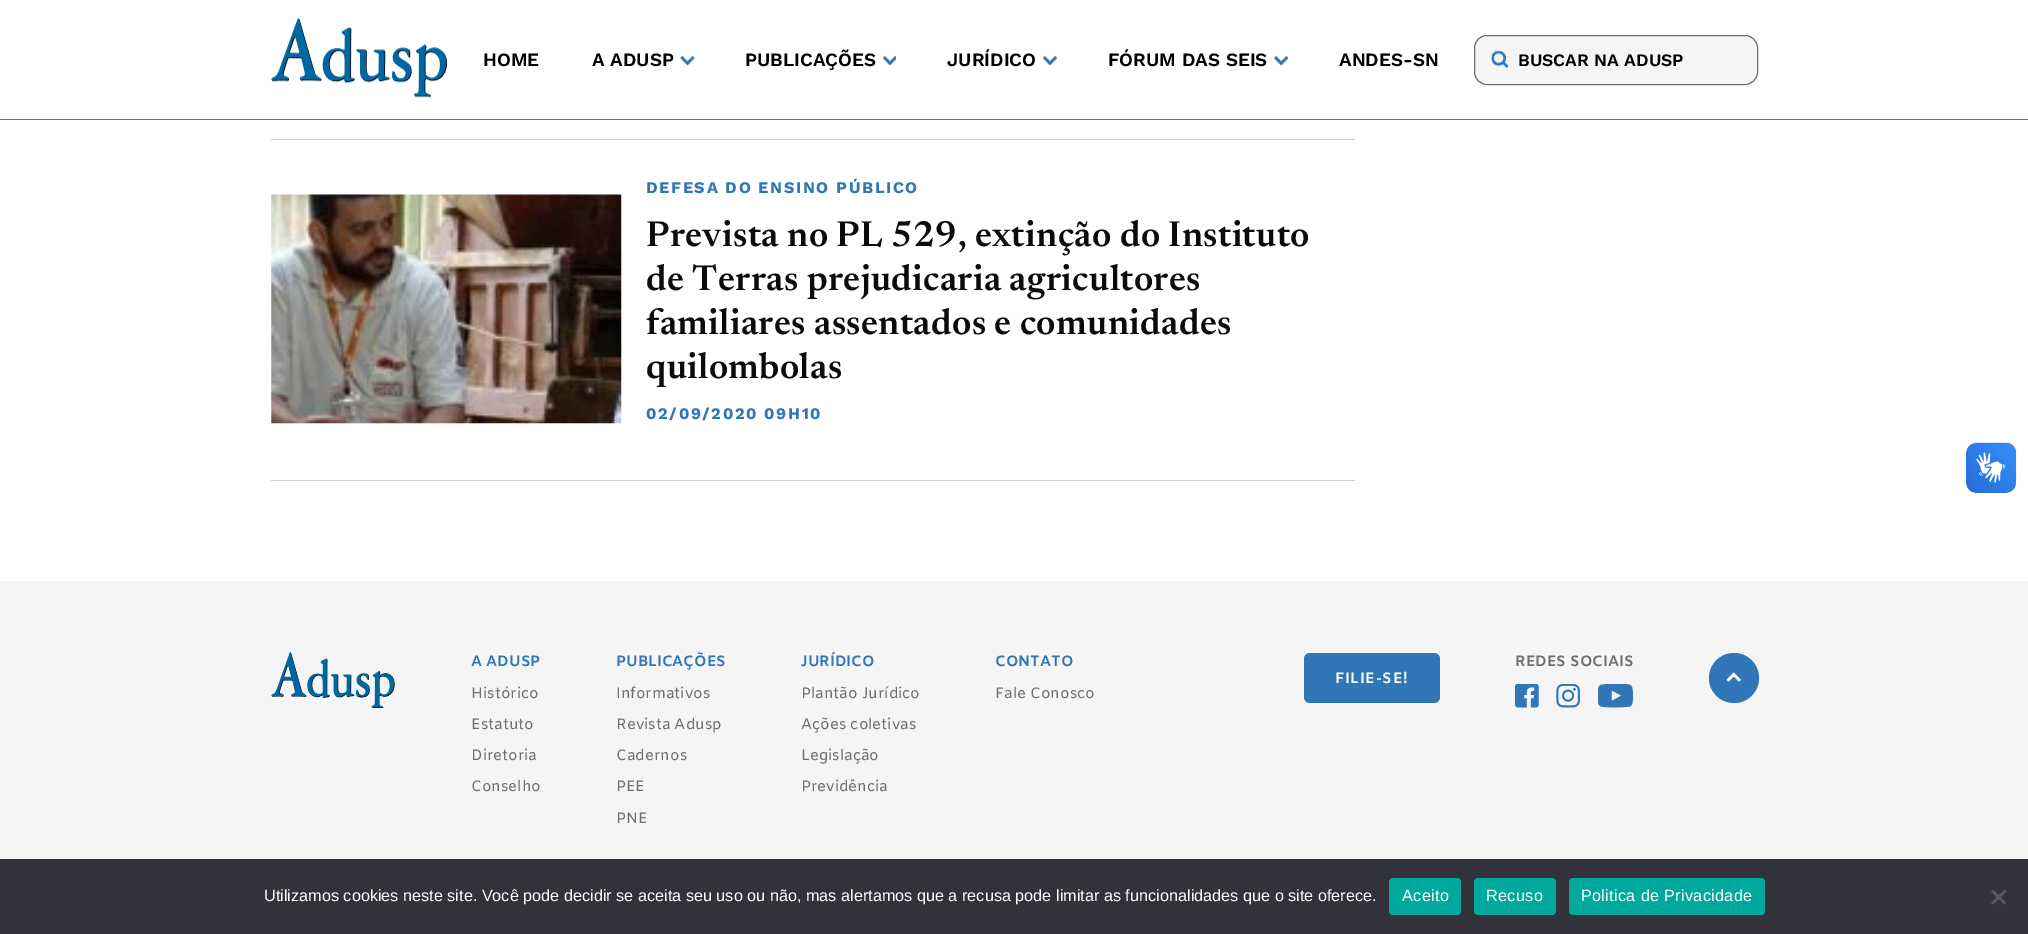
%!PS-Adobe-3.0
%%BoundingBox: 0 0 2028 934
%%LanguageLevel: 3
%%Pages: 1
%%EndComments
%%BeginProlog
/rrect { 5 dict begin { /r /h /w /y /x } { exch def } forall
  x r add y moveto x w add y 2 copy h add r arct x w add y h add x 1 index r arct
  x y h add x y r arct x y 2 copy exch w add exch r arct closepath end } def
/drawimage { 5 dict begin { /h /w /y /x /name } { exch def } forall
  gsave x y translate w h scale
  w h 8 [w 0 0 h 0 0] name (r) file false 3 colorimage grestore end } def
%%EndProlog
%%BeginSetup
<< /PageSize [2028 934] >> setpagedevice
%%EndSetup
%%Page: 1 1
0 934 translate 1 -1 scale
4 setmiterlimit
1 setgray
0 0 2028 934 rectfill
0.431 0.435 0.443 setrgbcolor
0 119 2028 1 rectfill
(images/1.raw) 271 18 176 80 drawimage
(images/2.raw) 680 56 15 10 drawimage
(images/3.raw) 883 56 13 10 drawimage
(images/4.raw) 1043 56 15 10 drawimage
(images/5.raw) 1274 56 14 10 drawimage
0.961 setgray
1474.5 35.5 283 49 12.5 rrect gsave fill grestore
0.431 0.435 0.443 setrgbcolor
stroke
(images/6.raw) 1491 50 18 19 drawimage
0.824 setgray
271 139 1084 1 rectfill
271 480 1084 1 rectfill
(images/7.raw) 271 194 351 230 drawimage
(images/8.raw) 1966 442 51 51 drawimage
(images/9.raw) 1966 443 50 50 drawimage
0.961 setgray
0 581 2028 278 rectfill
(images/10.raw) 271 652 124 56 drawimage
(images/11.raw) 1515 684 24 24 drawimage
(images/12.raw) 1556 684 24 24 drawimage
(images/13.raw) 1598 684 36 24 drawimage
0.192 0.463 0.714 setrgbcolor
1304 653 136 50 6 rrect fill
newpath 1734 678 25 0 360 arc closepath fill
(images/14.raw) 1726 672 15 10 drawimage
0.196 0.196 0.227 setrgbcolor
0 859 2028 75 rectfill
0 0.663 0.616 setrgbcolor
1389 878 72 37 4 rrect fill
1474 878 82 37 4 rrect fill
1569 878 196 37 4 rrect fill
0.349 0.349 0.365 setrgbcolor
newpath 2004.5 889.5 moveto 2006.5 891.5 lineto 1993 904.5 lineto 1991 903 lineto closepath fill
newpath 1991 891.5 moveto 1993 889.5 lineto 2006.5 903 lineto 2004.5 904.5 lineto closepath fill
/WorkSans-SemiBold [18.75 0 0 -18.75 0 0] selectfont
0 setgray
483 66 moveto (HOME) show
592 66 moveto (A ADUSP) show
745 66 moveto (PUBLICAÇÕES) show
947 66 moveto (JURÍDICO) show
1108 66 moveto (FÓRUM DAS SEIS) show
1339 66 moveto (ANDES-SN) show
/WorkSans-SemiBold [17.5 0 0 -17.5 0 0] selectfont
1518 66 moveto (BUSCAR NA ADUSP) show
/WorkSans-Bold [16.25 0 0 -16.25 0 0] selectfont
0.192 0.463 0.714 setrgbcolor
646 193 moveto 1.6 0 (DEFESA DO ENSINO PÚBLICO) ashow
/Newsreader-SemiBold [36.25 0 0 -36.25 0 0] selectfont
0.043 setgray
646 246 moveto 0.35 0 (Prevista no PL 529, extinção do Instituto) ashow
646 290 moveto 0.35 0 (de Terras prejudicaria agricultores) ashow
646 334 moveto 0.35 0 (familiares assentados e comunidades) ashow
646 378 moveto 0.35 0 (quilombolas) ashow
/WorkSans-Bold [16.25 0 0 -16.25 0 0] selectfont
0.192 0.463 0.714 setrgbcolor
646 419 moveto 1.6 0 (02/09/2020 09H10) ashow
/Amiko-Bold [15 0 0 -15 0 0] selectfont
471 666 moveto (A ADUSP) show
/Amiko-Regular [15 0 0 -15 0 0] selectfont
0.431 0.435 0.443 setrgbcolor
471 698 moveto (Histórico) show
471 729 moveto (Estatuto) show
471 760 moveto (Diretoria) show
471 791 moveto (Conselho) show
/Amiko-Bold [15 0 0 -15 0 0] selectfont
0.192 0.463 0.714 setrgbcolor
616 666 moveto (PUBLICAÇÕES) show
/Amiko-Regular [15 0 0 -15 0 0] selectfont
0.431 0.435 0.443 setrgbcolor
616 698 moveto (Informativos) show
616 729 moveto (Revista Adusp) show
616 760 moveto (Cadernos) show
616 791 moveto (PEE) show
616 823 moveto (PNE) show
/Amiko-Bold [15 0 0 -15 0 0] selectfont
0.192 0.463 0.714 setrgbcolor
801 666 moveto (JURÍDICO) show
/Amiko-Regular [15 0 0 -15 0 0] selectfont
0.431 0.435 0.443 setrgbcolor
801 698 moveto (Plantão Jurídico) show
801 729 moveto (Ações coletivas) show
801 760 moveto (Legislação) show
801 791 moveto (Previdência) show
/Amiko-Bold [15 0 0 -15 0 0] selectfont
0.192 0.463 0.714 setrgbcolor
995 666 moveto (CONTATO) show
/Amiko-Regular [15 0 0 -15 0 0] selectfont
0.431 0.435 0.443 setrgbcolor
995 698 moveto (Fale Conosco) show
/Amiko-Bold [15 0 0 -15 0 0] selectfont
1515 666 moveto (REDES SOCIAIS) show
1 setgray
1335 683 moveto 0.75 0 (FILIE-SE!) ashow
/LiberationSans-Regular [16.25 0 0 -16.25 0 0] selectfont
264 901 moveto (Utilizamos cookies neste site. Você pode decidir se aceita seu uso ou não, mas alertamos que a recusa pode limitar as funcionalidades que o site oferece.) show
1402 901 moveto 0.3 0 (Aceito) ashow
1486 901 moveto 0.3 0 (Recuso) ashow
1581 901 moveto 0.3 0 (Politica de Privacidade) ashow
showpage
%%EOF
